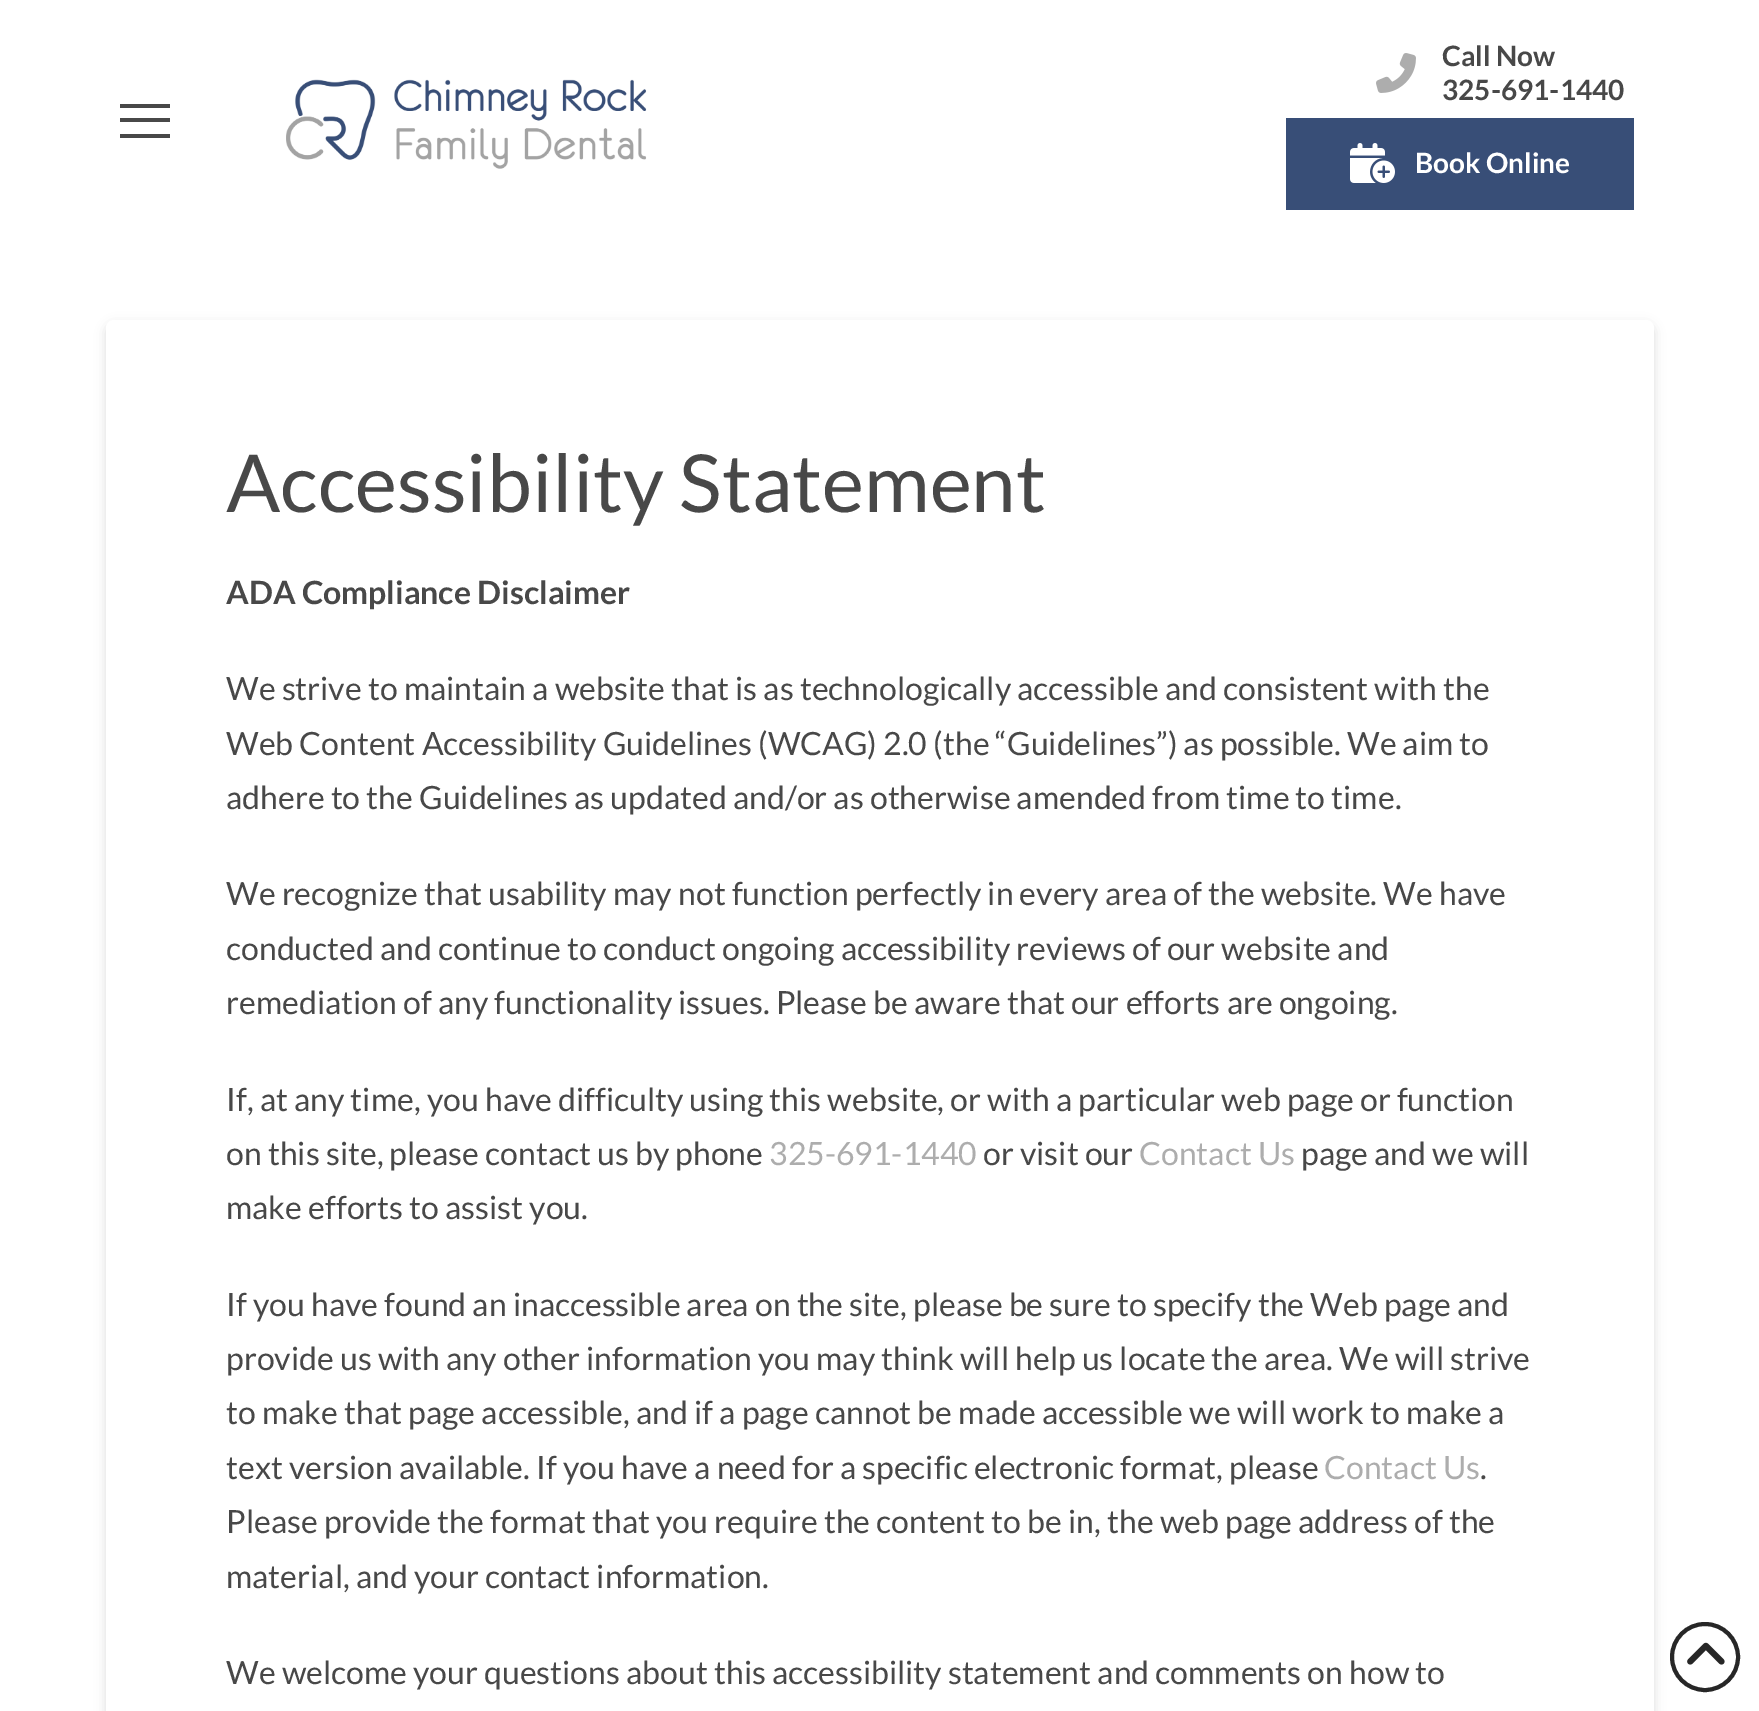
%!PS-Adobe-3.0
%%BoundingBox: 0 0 1759 1711
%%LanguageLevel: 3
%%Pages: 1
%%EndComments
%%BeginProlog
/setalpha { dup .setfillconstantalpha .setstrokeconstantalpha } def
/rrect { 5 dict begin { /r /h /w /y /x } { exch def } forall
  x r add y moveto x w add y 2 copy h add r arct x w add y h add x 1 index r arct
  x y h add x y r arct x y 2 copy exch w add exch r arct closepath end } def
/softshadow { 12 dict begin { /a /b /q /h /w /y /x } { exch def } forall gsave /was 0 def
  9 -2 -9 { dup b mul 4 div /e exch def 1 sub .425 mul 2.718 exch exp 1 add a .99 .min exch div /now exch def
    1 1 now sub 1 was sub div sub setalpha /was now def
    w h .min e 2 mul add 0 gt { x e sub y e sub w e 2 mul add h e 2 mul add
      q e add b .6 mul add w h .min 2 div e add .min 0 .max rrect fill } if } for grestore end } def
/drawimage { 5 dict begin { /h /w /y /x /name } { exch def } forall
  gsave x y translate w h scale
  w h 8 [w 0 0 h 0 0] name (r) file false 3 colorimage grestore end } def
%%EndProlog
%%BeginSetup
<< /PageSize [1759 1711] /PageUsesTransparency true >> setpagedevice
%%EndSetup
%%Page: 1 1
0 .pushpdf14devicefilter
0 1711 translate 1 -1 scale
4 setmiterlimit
1 setgray
0 0 1759 1711 rectfill
0.282 setgray
120 104 50 4 rectfill
120 118 50 4 rectfill
120 134 50 4 rectfill
(images/1.raw) 286 79 361 90 drawimage
(images/2.raw) 1376 53 40 40 drawimage
0.22 0.306 0.467 setrgbcolor
1286 118 348 92 rectfill
(images/3.raw) 1350 143 45 40 drawimage
0 setgray
106 324 1548 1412 8 5.5 0.13 softshadow
1 setgray
106 320 1548 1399 8 rrect fill
0.153 setgray
4 setlinewidth
newpath 1705 1657 33 0 360 arc closepath stroke
(images/4.raw) 1687 1642 38 23 drawimage
/Lato-Bold [28 0 0 -28 0 0] selectfont
0.282 setgray
1442 66 moveto (Call Now) show
1442 100 moveto (325-691-1440) show
1 setgray
1415 173 moveto (Book Online) show
/Lato-Regular [80 0 0 -80 0 0] selectfont
0.282 setgray
226 512 moveto (Accessibility Statement) show
/Lato-Bold [32 0 0 -32 0 0] selectfont
226 604 moveto (ADA Compliance Disclaimer) show
/Lato-Regular [32 0 0 -32 0 0] selectfont
226 700 moveto (We strive to maintain a website that is as technologically accessible and consistent with the) show
226 755 moveto (Web Content Accessibility Guidelines \(WCAG\) 2.0 \(the “Guidelines”\) as possible. We aim to) show
226 809 moveto (adhere to the Guidelines as updated and/or as otherwise amended from time to time.) show
226 905 moveto (We recognize that usability may not function perfectly in every area of the website. We have) show
226 960 moveto (conducted and continue to conduct ongoing accessibility reviews of our website and) show
226 1014 moveto (remediation of any functionality issues. Please be aware that our efforts are ongoing.) show
226 1111 moveto (If, at any time, you have difficulty using this website, or with a particular web page or function) show
226 1165 moveto (on this site, please contact us by phone) show
0.678 setgray
769 1165 moveto (325-691-1440) show
0.282 setgray
983 1165 moveto (or visit our) show
0.678 setgray
1139 1165 moveto (Contact Us) show
0.282 setgray
1301 1165 moveto (page and we will) show
226 1219 moveto (make efforts to assist you.) show
226 1316 moveto (If you have found an inaccessible area on the site, please be sure to specify the Web page and) show
226 1370 moveto (provide us with any other information you may think will help us locate the area. We will strive) show
226 1424 moveto (to make that page accessible, and if a page cannot be made accessible we will work to make a) show
226 1479 moveto (text version available. If you have a need for a specific electronic format, please) show
0.678 setgray
1324 1479 moveto (Contact Us) show
0.282 setgray
1480 1479 moveto (.) show
226 1533 moveto (Please provide the format that you require the content to be in, the web page address of the) show
226 1588 moveto (material, and your contact information.) show
226 1684 moveto (We welcome your questions about this accessibility statement and comments on how to) show
.poppdf14devicefilter showpage
%%EOF
